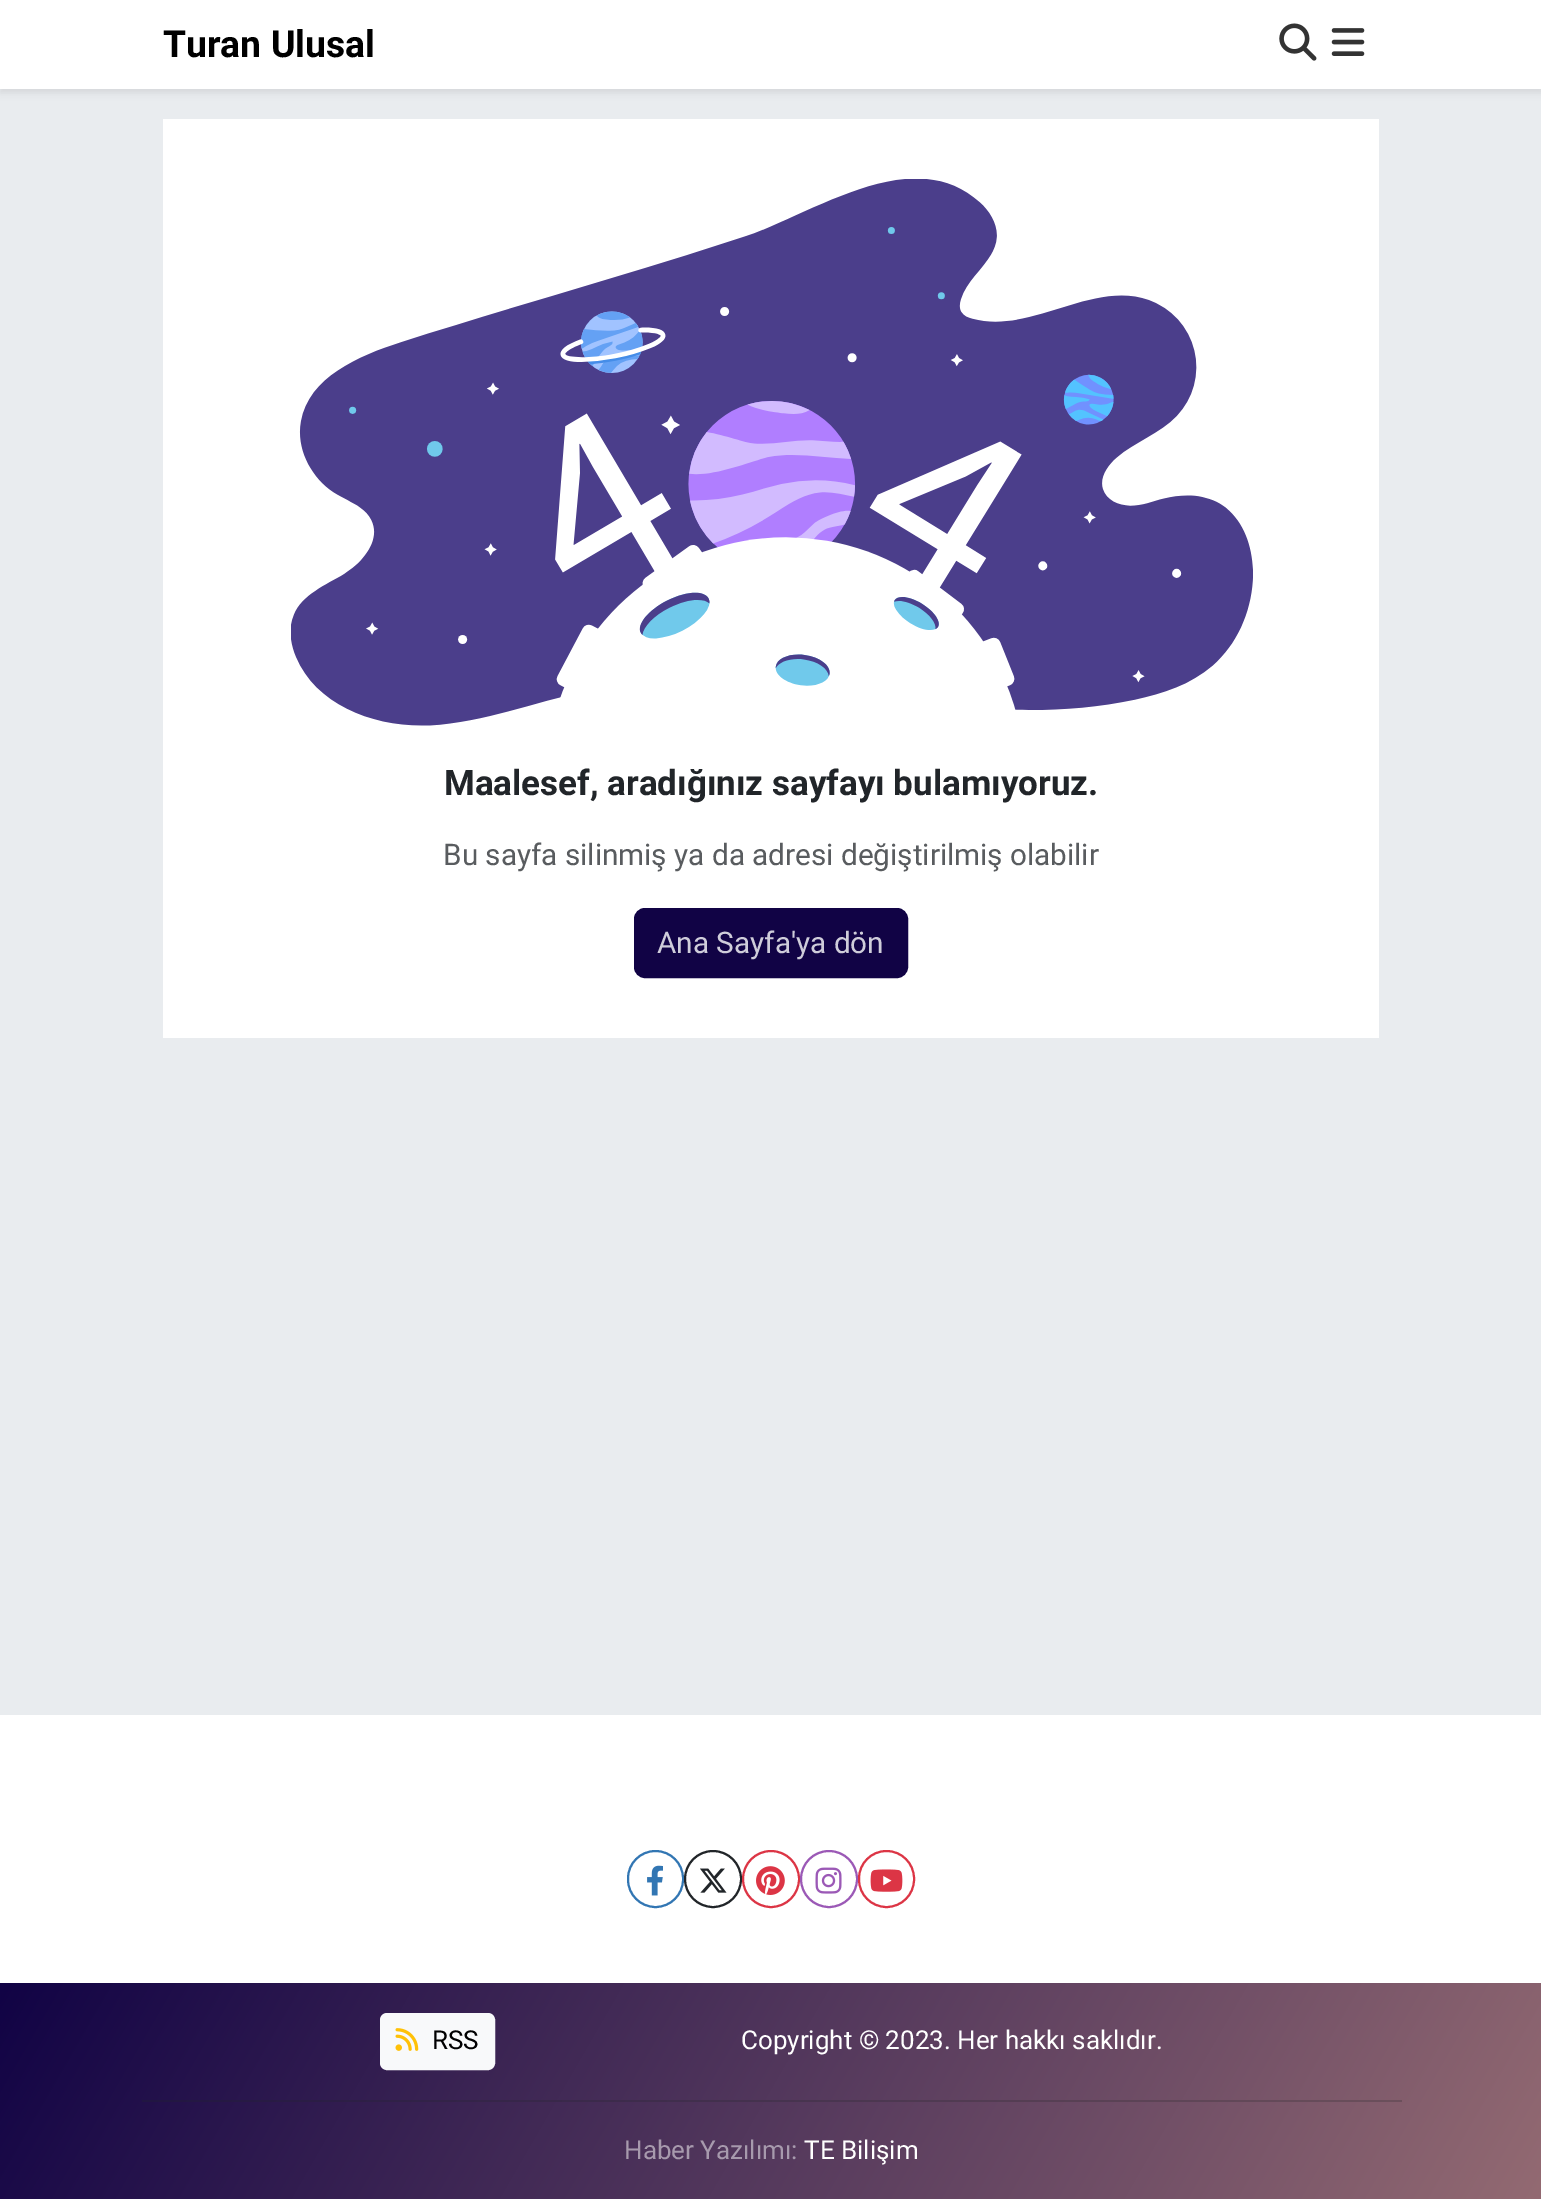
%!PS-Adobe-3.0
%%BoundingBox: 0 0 1541 2199
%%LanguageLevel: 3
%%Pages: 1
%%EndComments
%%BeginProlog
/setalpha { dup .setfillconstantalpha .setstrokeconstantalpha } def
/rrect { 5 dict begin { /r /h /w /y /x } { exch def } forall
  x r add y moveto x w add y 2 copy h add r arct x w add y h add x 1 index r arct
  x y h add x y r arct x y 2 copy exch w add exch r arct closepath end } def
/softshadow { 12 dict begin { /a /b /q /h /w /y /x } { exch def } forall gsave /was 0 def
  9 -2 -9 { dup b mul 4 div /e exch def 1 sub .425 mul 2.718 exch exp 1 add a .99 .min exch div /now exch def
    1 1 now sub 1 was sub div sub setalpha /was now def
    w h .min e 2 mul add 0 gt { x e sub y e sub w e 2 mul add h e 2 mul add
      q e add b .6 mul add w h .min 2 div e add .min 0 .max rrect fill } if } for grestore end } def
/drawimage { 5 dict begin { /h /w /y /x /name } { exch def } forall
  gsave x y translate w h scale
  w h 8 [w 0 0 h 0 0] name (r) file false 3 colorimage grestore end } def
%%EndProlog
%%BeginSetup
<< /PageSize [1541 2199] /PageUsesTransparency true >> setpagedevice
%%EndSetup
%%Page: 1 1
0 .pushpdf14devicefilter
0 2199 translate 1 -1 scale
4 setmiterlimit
0.914 0.925 0.937 setrgbcolor
0 0 1541 2199 rectfill
0 setgray
0 4 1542 89 0 3.5 0.07 softshadow
1 setgray
0 0 1541 89 rectfill
(images/1.raw) 1279 23 38 38 drawimage
(images/2.raw) 1331 28 34 28 drawimage
163 119 1216 919 rectfill
(images/3.raw) 291 179 962 547 drawimage
0.067 0.012 0.271 setrgbcolor
635 909 272 68 10 rrect gsave fill grestore
2 setlinewidth
stroke
1 setgray
0 1715 1541 268 rectfill
0.196 0.463 0.702 setrgbcolor
628 1851 55 56 27.5 rrect stroke
(images/4.raw) 647 1865 16 31 drawimage
0.129 0.145 0.161 setrgbcolor
newpath 713 1879 28 0 360 arc closepath stroke
(images/5.raw) 700 1868 27 25 drawimage
0.863 0.208 0.271 setrgbcolor
newpath 771 1879 28 0 360 arc closepath stroke
(images/6.raw) 756 1866 29 29 drawimage
0.608 0.349 0.714 setrgbcolor
newpath 829 1879 28 0 360 arc closepath stroke
(images/7.raw) 815 1867 27 27 drawimage
0.863 0.208 0.271 setrgbcolor
859 1851 55 56 27.5 rrect stroke
(images/8.raw) 870 1869 33 23 drawimage
gsave newpath 0 1983 moveto 1541 1983 lineto 1541 2199 lineto 0 2199 lineto closepath clip newpath
<< /ShadingType 2 /ColorSpace /DeviceRGB /Coords [146 1730 1396 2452] /Extend [true true] /Function << /FunctionType 2 /Domain [0 1] /C0 [0.067 0.012 0.271] /C1 [0.576 0.416 0.447] /N 1 >> >> shfill grestore
gsave newpath 142 2100 moveto 1402 2100 lineto 1402 2102 lineto 142 2102 lineto closepath clip newpath
<< /ShadingType 2 /ColorSpace /DeviceRGB /Coords [146 1730 1396 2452] /Extend [true true] /Function << /FunctionType 2 /Domain [0 1] /C0 [0.082 0.047 0.243] /C1 [0.467 0.349 0.376] /N 1 >> >> shfill grestore
0.973 0.976 0.98 setrgbcolor
381 2014 113 55 6 rrect gsave fill grestore
stroke
(images/9.raw) 395 2028 24 23 drawimage
/Roboto-Bold [37.25 0 0 -37.25 0 0] selectfont
0 setgray
163 57 moveto (Turan Ulusal) show
/Roboto-Bold [35 0 0 -35 0 0] selectfont
0.129 0.145 0.161 setrgbcolor
444 795 moveto (Maalesef, aradığınız sayfayı bulamıyoruz.) show
/Roboto-Regular [29.75 0 0 -29.75 0 0] selectfont
0.349 0.361 0.373 setrgbcolor
443 865 moveto (Bu sayfa silinmiş ya da adresi değiştirilmiş olabilir) show
0.812 0.804 0.855 setrgbcolor
657 953 moveto (Ana Sayfa'ya dön) show
/Roboto-Regular [26 0 0 -26 0 0] selectfont
0 setgray
432 2049 moveto (RSS) show
1 setgray
741 2049 moveto (Copyright © 2023. Her hakkı saklıdır.) show
0.655 0.604 0.678 setrgbcolor
624 2159 moveto (Haber Yazılımı:) show
1 setgray
804 2159 moveto (TE Bilişim) show
.poppdf14devicefilter showpage
%%EOF
